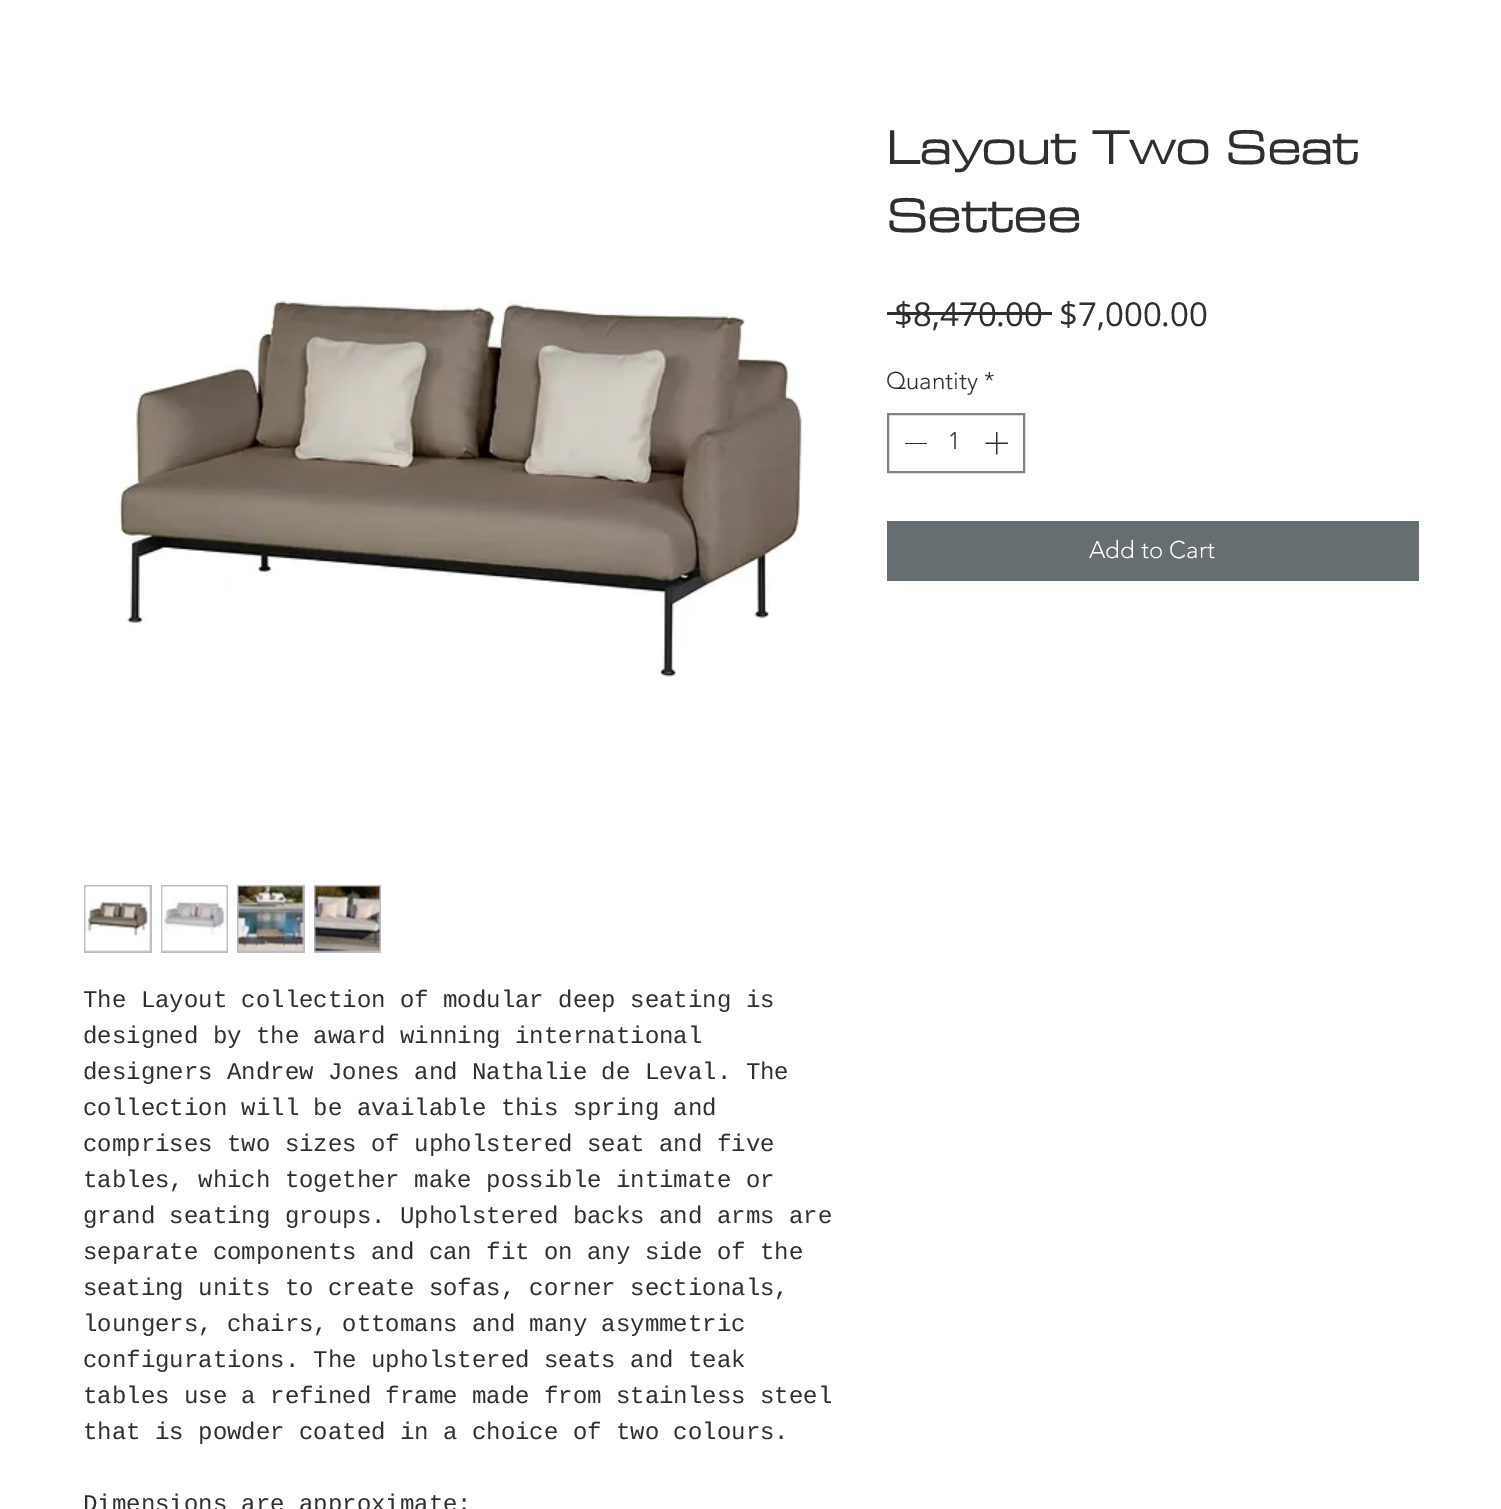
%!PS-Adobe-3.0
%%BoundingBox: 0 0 1501 1509
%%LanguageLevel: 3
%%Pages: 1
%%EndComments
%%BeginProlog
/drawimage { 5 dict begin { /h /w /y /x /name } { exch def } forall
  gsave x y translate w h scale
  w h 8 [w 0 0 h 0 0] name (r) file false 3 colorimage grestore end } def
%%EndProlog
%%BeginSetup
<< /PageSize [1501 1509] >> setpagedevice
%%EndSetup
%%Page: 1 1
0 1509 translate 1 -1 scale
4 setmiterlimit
1 setgray
0 0 1501 1509 rectfill
0.184 0.184 0.188 setrgbcolor
887 312 165 3 rectfill
0.51 0.51 0.514 setrgbcolor
2 setlinewidth
888 414 136 58 rectstroke
0.184 0.184 0.188 setrgbcolor
905 443 22 1 rectfill
(images/1.raw) 985 432 23 23 drawimage
0.404 0.431 0.443 setrgbcolor
887 521 532 60 rectfill
(images/2.raw) 119 299 683 379 drawimage
0.745 0.737 0.761 setrgbcolor
84 885 68 68 rectfill
(images/3.raw) 85 886 66 66 drawimage
161 885 67 68 rectfill
(images/4.raw) 161 886 66 66 drawimage
237 885 68 68 rectfill
(images/5.raw) 238 886 66 65 drawimage
314 885 67 68 rectfill
(images/6.raw) 314 886 66 66 drawimage
/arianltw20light-Bold [57 0 0 -57 0 0] selectfont
0.184 0.184 0.188 setrgbcolor
886 164 moveto (Layout Two Seat) show
886 232 moveto (Settee) show
/OpenSans-Regular [33 0 0 -33 0 0] selectfont
894 326 moveto ($8,470.00) show
1059 326 moveto ($7,000.00) show
/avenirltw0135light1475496-Light [24 0 0 -24 0 0] selectfont
886 389 moveto (Quantity *) show
948 449 moveto (1) show
1 setgray
1089 558 moveto (Add to Cart) show
/LiberationMono-Regular [24 0 0 -24 0 0] selectfont
0.184 0.184 0.188 setrgbcolor
83 1007 moveto (The Layout collection of modular deep seating is) show
83 1043 moveto (designed by the award winning international) show
83 1079 moveto (designers Andrew Jones and Nathalie de Leval. The) show
83 1115 moveto (collection will be available this spring and) show
83 1151 moveto (comprises two sizes of upholstered seat and five) show
83 1187 moveto (tables, which together make possible intimate or) show
83 1223 moveto (grand seating groups. Upholstered backs and arms are) show
83 1259 moveto (separate components and can fit on any side of the) show
83 1295 moveto (seating units to create sofas, corner sectionals,) show
83 1331 moveto (loungers, chairs, ottomans and many asymmetric) show
83 1367 moveto (configurations. The upholstered seats and teak) show
83 1403 moveto (tables use a refined frame made from stainless steel) show
83 1439 moveto (that is powder coated in a choice of two colours.) show
83 1511 moveto (Dimensions are approximate:) show
showpage
%%EOF
